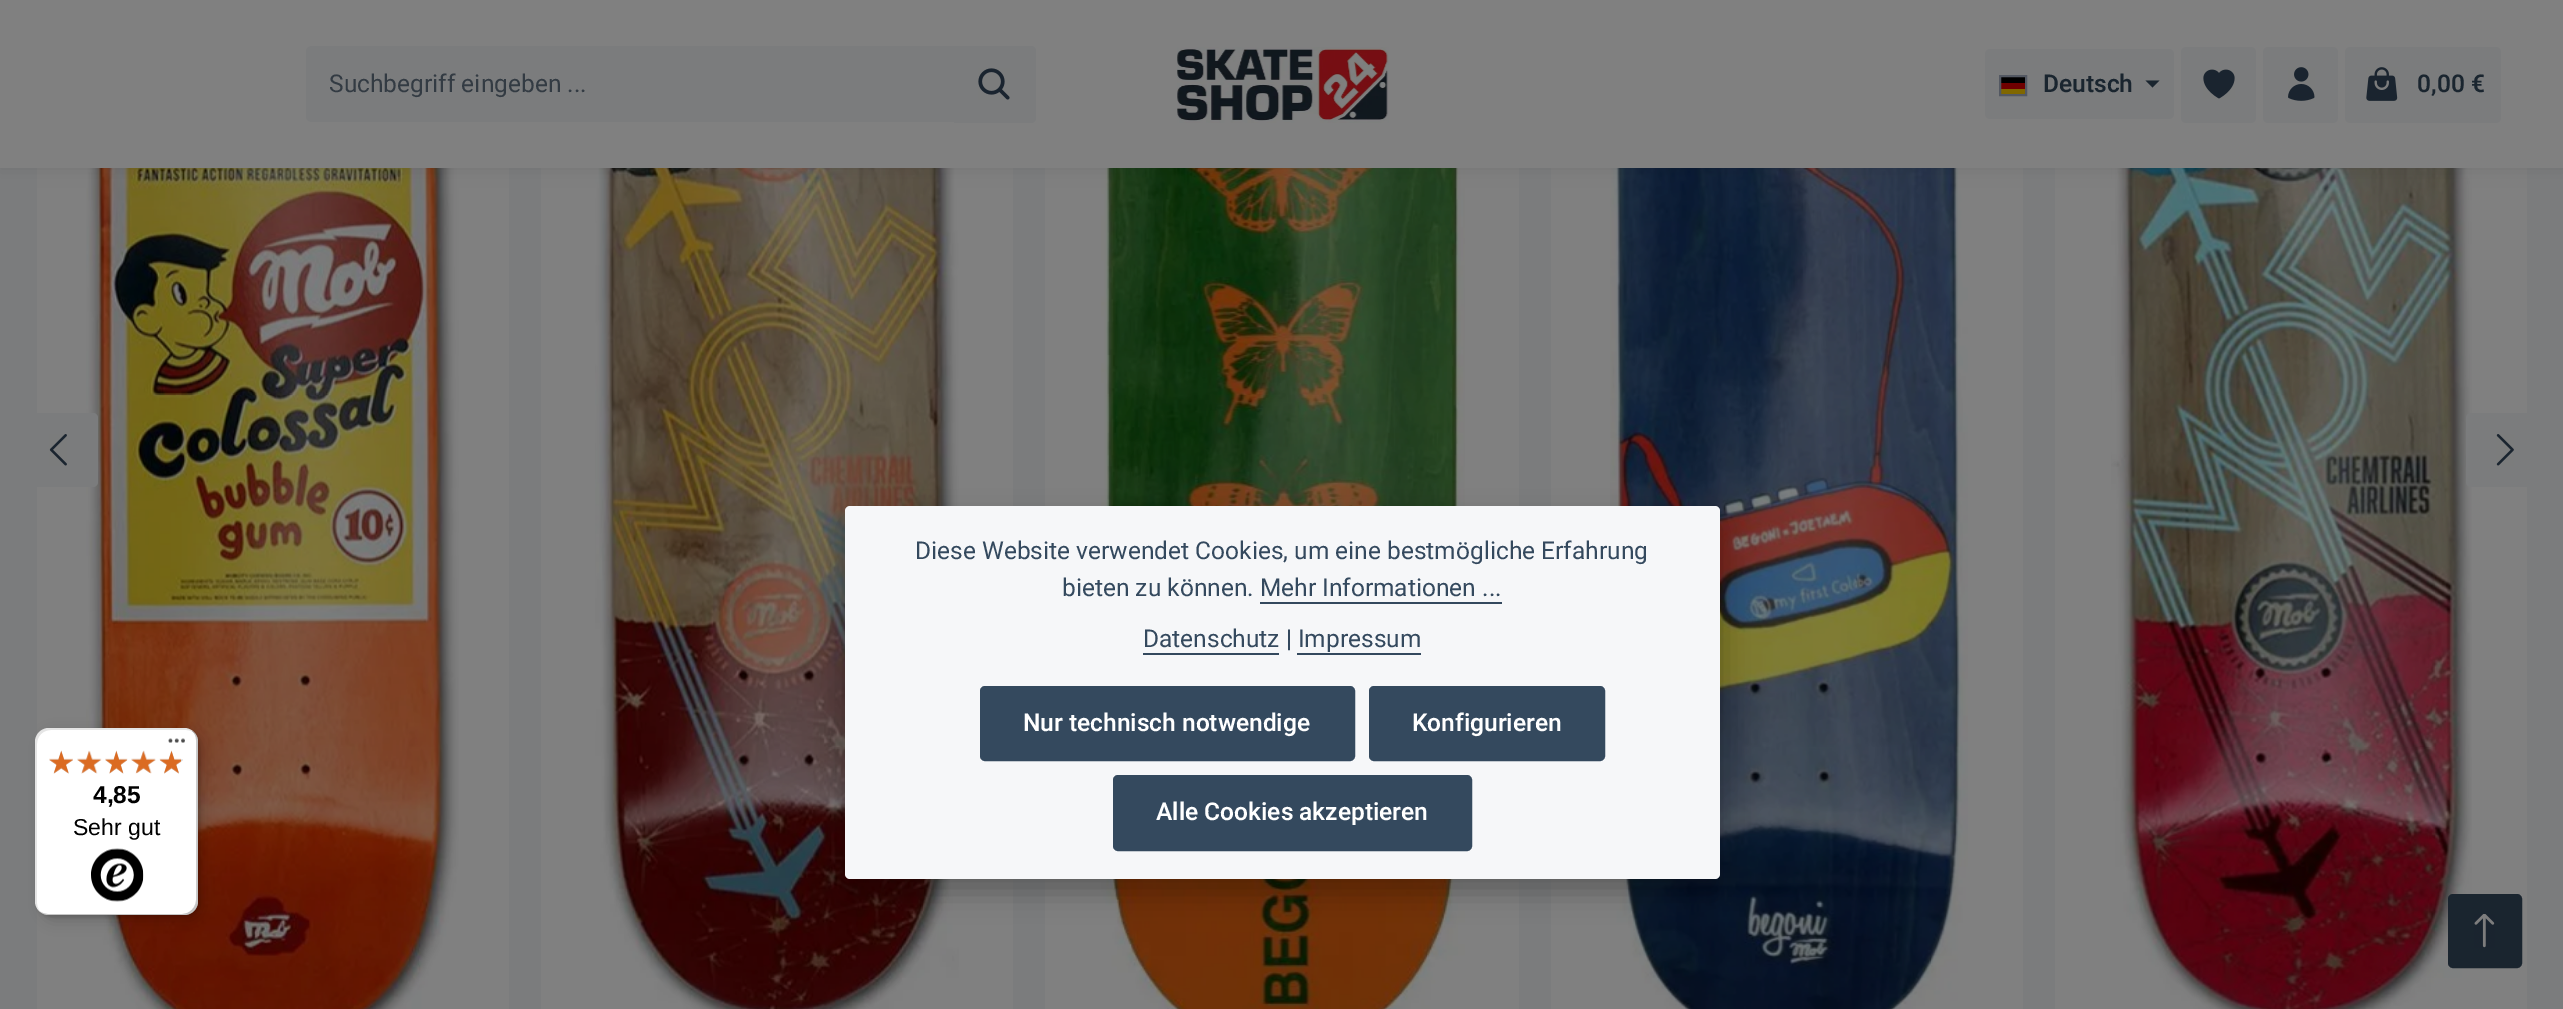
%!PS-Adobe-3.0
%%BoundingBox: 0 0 2563 1009
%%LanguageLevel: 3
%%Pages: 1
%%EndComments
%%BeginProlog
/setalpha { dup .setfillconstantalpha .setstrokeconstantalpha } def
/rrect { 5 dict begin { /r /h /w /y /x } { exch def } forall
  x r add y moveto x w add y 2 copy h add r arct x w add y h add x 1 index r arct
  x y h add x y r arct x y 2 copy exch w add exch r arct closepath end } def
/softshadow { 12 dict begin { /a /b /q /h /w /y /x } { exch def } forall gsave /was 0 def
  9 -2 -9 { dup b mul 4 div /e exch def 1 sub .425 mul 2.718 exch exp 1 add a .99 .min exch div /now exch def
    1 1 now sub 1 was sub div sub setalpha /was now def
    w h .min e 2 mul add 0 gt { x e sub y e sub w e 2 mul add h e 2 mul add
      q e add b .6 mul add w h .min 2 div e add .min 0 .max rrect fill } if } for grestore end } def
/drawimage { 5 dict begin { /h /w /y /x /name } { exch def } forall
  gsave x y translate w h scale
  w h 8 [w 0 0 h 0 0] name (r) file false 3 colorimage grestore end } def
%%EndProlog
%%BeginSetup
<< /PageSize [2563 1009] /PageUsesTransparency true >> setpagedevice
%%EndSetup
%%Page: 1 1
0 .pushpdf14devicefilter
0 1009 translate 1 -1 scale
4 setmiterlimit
0.482 0.486 0.49 setrgbcolor
0 0 2563 1009 rectfill
0.502 setgray
37 168 472 841 rectfill
(images/6.raw) 86 168 373 841 drawimage
541 168 472 841 rectfill
(images/7.raw) 595 168 364 841 drawimage
1045 168 474 841 rectfill
(images/8.raw) 1101 168 364 841 drawimage
1551 168 472 841 rectfill
(images/9.raw) 1610 168 358 841 drawimage
2055 168 472 841 rectfill
(images/10.raw) 2111 168 361 841 drawimage
0 setgray
0 0 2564 168 0 9 0.1 softshadow
0.502 setgray
0 0 2563 168 rectfill
0.482 0.486 0.49 setrgbcolor
newpath 312 47 moveto 956 47 lineto 956 121 lineto 312 121 lineto 310 121 308 119 308 117 curveto 308 51 lineto 308 49 310 47 312 47 curveto closepath fill
newpath 312 46 moveto 956 46 lineto 956 122 lineto 312 122 lineto 309 122 306 120 306 117 curveto 306 51 lineto 306 48 309 46 312 46 curveto closepath 312 47 moveto 956 47 lineto 956 121 lineto 312 121 lineto 310 121 308 119 308 117 curveto 308 51 lineto 308 49 310 47 312 47 curveto closepath eofill
newpath 954 46 moveto 1031 46 lineto 1034 46 1036 48 1036 51 curveto 1036 118 lineto 1036 121 1034 123 1031 123 curveto 954 123 lineto closepath fill
(images/1.raw) 978 68 32 32 drawimage
(images/2.raw) 1177 47 212 76 drawimage
1985 49 189 70 5 rrect fill
0.502 0.404 0 setrgbcolor
2000 89 25 5 rectfill
0 setgray
2000 77 25 6 rectfill
0.435 0 0 setrgbcolor
2000 83 25 6 rectfill
0.325 0.345 0.384 setrgbcolor
2 setlinewidth
2000 76 26 19 rectstroke
0.102 0.145 0.184 setrgbcolor
newpath 2145.5 80.5 moveto 2159.5 80.5 lineto 2152.5 87.5 lineto closepath fill
0.482 0.486 0.49 setrgbcolor
2181 47 75 76 5 rrect fill
(images/3.raw) 2203 69 32 30 drawimage
2263 47 75 76 5 rrect fill
(images/4.raw) 2288 67 27 34 drawimage
2345 47 156 76 5 rrect fill
(images/5.raw) 2366 67 32 34 drawimage
25 413 73 74 5 rrect fill
(images/11.raw) 49 434 18 32 drawimage
2466 413 73 74 5 rrect fill
(images/12.raw) 2496 434 18 32 drawimage
0 setgray
40 733 163 188 14 7 0.15 softshadow
37 730 163 187 14 2 0.15 softshadow
1 setgray
35 728 163 187 14 rrect fill
0.1 setalpha
0 setgray
newpath 51 730 moveto 186 730 lineto 189 730 193 731 195 734 curveto 193 730 189 728 184 728 curveto 49 728 lineto 41 728 35 734 35 742 curveto 35 901 lineto 35 905 37 909 40 911 curveto 38 909 37 906 37 903 curveto 37 744 lineto 37 736 43 730 51 730 curveto closepath fill
0.2 setalpha
newpath 40 912 moveto 43 914 46 915 49 915 curveto 184 915 lineto 192 915 198 909 198 901 curveto 198 742 lineto 198 737 196 733 192 731 curveto 195 733 196 737 196 740 curveto 196 900 lineto 196 907 190 914 182 914 curveto 47 914 lineto 45 914 42 913 40 912 curveto closepath fill
0.196 setgray
newpath 40 911 moveto 42 914 45 915 49 915 curveto 184 915 lineto 192 915 198 909 198 901 curveto 198 742 lineto 198 737 196 733 192 731 curveto 195 733 197 737 197 741 curveto 197 900 lineto 197 908 190 914 183 914 curveto 48 914 lineto 45 914 42 913 40 911 curveto closepath fill
0.3 setalpha
1 setgray
newpath 40 911 moveto 42 914 45 915 49 915 curveto 184 915 lineto 192 915 198 909 198 901 curveto 198 742 lineto 198 738 197 735 194 733 curveto 196 735 197 738 197 741 curveto 197 900 lineto 197 908 191 914 183 914 curveto 48 914 lineto 45 914 42 913 40 911 curveto closepath fill
1 setalpha
(images/13.raw) 168 738 17 5 drawimage
(images/19.raw) 49 751 24 23 drawimage
(images/14.raw) 49 750 24 24 drawimage
(images/20.raw) 77 751 24 23 drawimage
(images/15.raw) 77 750 25 24 drawimage
(images/21.raw) 105 751 22 23 drawimage
(images/16.raw) 105 750 23 24 drawimage
(images/22.raw) 131 751 25 22 drawimage
(images/17.raw) 131 750 25 24 drawimage
(images/23.raw) 160 751 23 23 drawimage
(images/18.raw) 159 750 22 24 drawimage
(images/24.raw) 91 848 53 54 drawimage
0 setgray
845 520 875 373 5 14 0.25 softshadow
0.965 0.969 0.976 setrgbcolor
845 506 875 373 5 rrect fill
0.204 0.286 0.369 setrgbcolor
1260 602 242 2 rectfill
1143 653 136 2 rectfill
1297 653 124 2 rectfill
981 687 373 73 4 rrect gsave fill grestore
stroke
1370 687 234 73 4 rrect gsave fill grestore
stroke
1114 776 357 74 4 rrect gsave fill grestore
stroke
0.102 0.145 0.184 setrgbcolor
2449 895 72 72 4 rrect gsave fill grestore
stroke
(images/25.raw) 2474 914 21 34 drawimage
/Heebo-Regular [24.5 0 0 -24.5 0 0] selectfont
0.2 0.231 0.263 setrgbcolor
329 92 moveto (Suchbegriff eingeben ...) show
/Heebo-SemiBold [24.5 0 0 -24.5 0 0] selectfont
0.102 0.145 0.184 setrgbcolor
2043 92 moveto (Deutsch) show
2417 92 moveto (0,00 €) show
/LiberationSans-Bold [24.5 0 0 -24.5 0 0] selectfont
0 setgray
93 803 moveto (4,85) show
/LiberationSans-Regular [23 0 0 -23 0 0] selectfont
73 835 moveto (Sehr gut) show
/Heebo-Regular [24.5 0 0 -24.5 0 0] selectfont
0.204 0.286 0.369 setrgbcolor
915 559 moveto (Diese Website verwendet Cookies, um eine bestmögliche Erfahrung) show
1062 596 moveto (bieten zu können. Mehr Informationen ...) show
1143 647 moveto (Datenschutz | Impressum) show
/Heebo-SemiBold [24.5 0 0 -24.5 0 0] selectfont
1 setgray
1023 731 moveto (Nur technisch notwendige) show
1412 731 moveto (Konfigurieren) show
1156 820 moveto (Alle Cookies akzeptieren) show
.poppdf14devicefilter showpage
%%EOF
